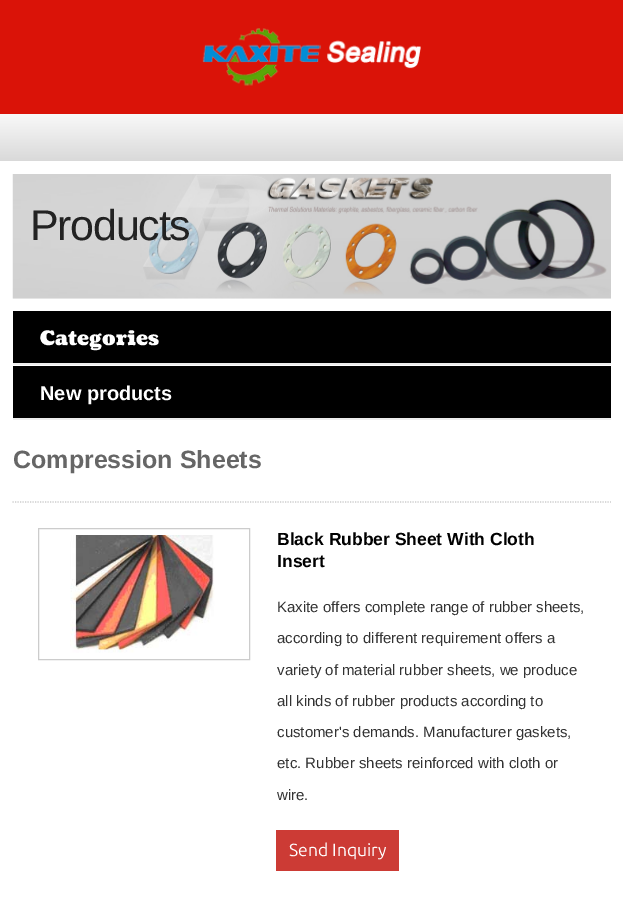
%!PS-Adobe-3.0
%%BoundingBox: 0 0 623 909
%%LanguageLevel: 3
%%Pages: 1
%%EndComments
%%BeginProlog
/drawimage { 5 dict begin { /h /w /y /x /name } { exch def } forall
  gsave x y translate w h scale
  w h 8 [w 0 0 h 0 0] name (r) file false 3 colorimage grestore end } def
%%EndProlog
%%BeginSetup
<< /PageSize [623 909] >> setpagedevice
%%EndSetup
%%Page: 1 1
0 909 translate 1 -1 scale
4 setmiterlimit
1 setgray
0 0 623 909 rectfill
0.855 0.075 0.031 setrgbcolor
0 0 623 114 rectfill
(images/1.raw) 202 28 219 58 drawimage
gsave newpath 0 114 moveto 623 114 lineto 623 161 lineto 0 161 lineto closepath clip newpath
<< /ShadingType 2 /ColorSpace /DeviceRGB /Coords [312 114 312 161] /Extend [true true] /Function << /FunctionType 2 /Domain [0 1] /C0 [0.976 0.976 0.976] /C1 [0.851 0.851 0.851] /N 1 >> >> shfill grestore
(images/2.raw) 12 174 599 125 drawimage
0.929 setgray
13 363 598 2 rectfill
0 setgray
13 311 598 52 rectfill
0.929 setgray
13 418 598 2 rectfill
0 setgray
13 366 598 52 rectfill
0.8 setgray
1.2 setlinewidth
[1.25 1.25] 0 setdash
newpath 12.5 502 moveto 611 502 lineto stroke
1 setlinewidth
[] 0 setdash
38.5 528.5 211 131 rectstroke
(images/3.raw) 70 535 145 118 drawimage
0.8 0.231 0.208 setrgbcolor
276 830 123 41 rectfill
/LiberationSans-Regular [43 0 0 -43 0 0] selectfont
0.133 setgray
30 240 moveto -1.25 0 (Products) ashow
/Coustard-Black [20 0 0 -20 0 0] selectfont
1 setgray
40 345 moveto (Categories) show
/LiberationSans-Bold [20 0 0 -20 0 0] selectfont
40 400 moveto (New products) show
/LiberationSans-Bold [25 0 0 -25 0 0] selectfont
0.4 setgray
13 468 moveto (Compression Sheets) show
/LiberationSans-Bold [17.5 0 0 -17.5 0 0] selectfont
0 setgray
277 545 moveto (Black Rubber Sheet With Cloth) show
277 567 moveto (Insert) show
/LiberationSans-Regular [15 0 0 -15 0 0] selectfont
0.2 setgray
277 612 moveto (Kaxite offers complete range of rubber sheets,) show
277 643 moveto (according to different requirement offers a) show
277 675 moveto (variety of material rubber sheets, we produce) show
277 706 moveto (all kinds of rubber products according to) show
277 737 moveto (customer's demands. Manufacturer gaskets,) show
277 768 moveto (etc. Rubber sheets reinforced with cloth or) show
277 800 moveto (wire.) show
/Ubuntu-Regular [17.5 0 0 -17.5 0 0] selectfont
1 setgray
289 856 moveto (Send Inquiry) show
showpage
%%EOF
